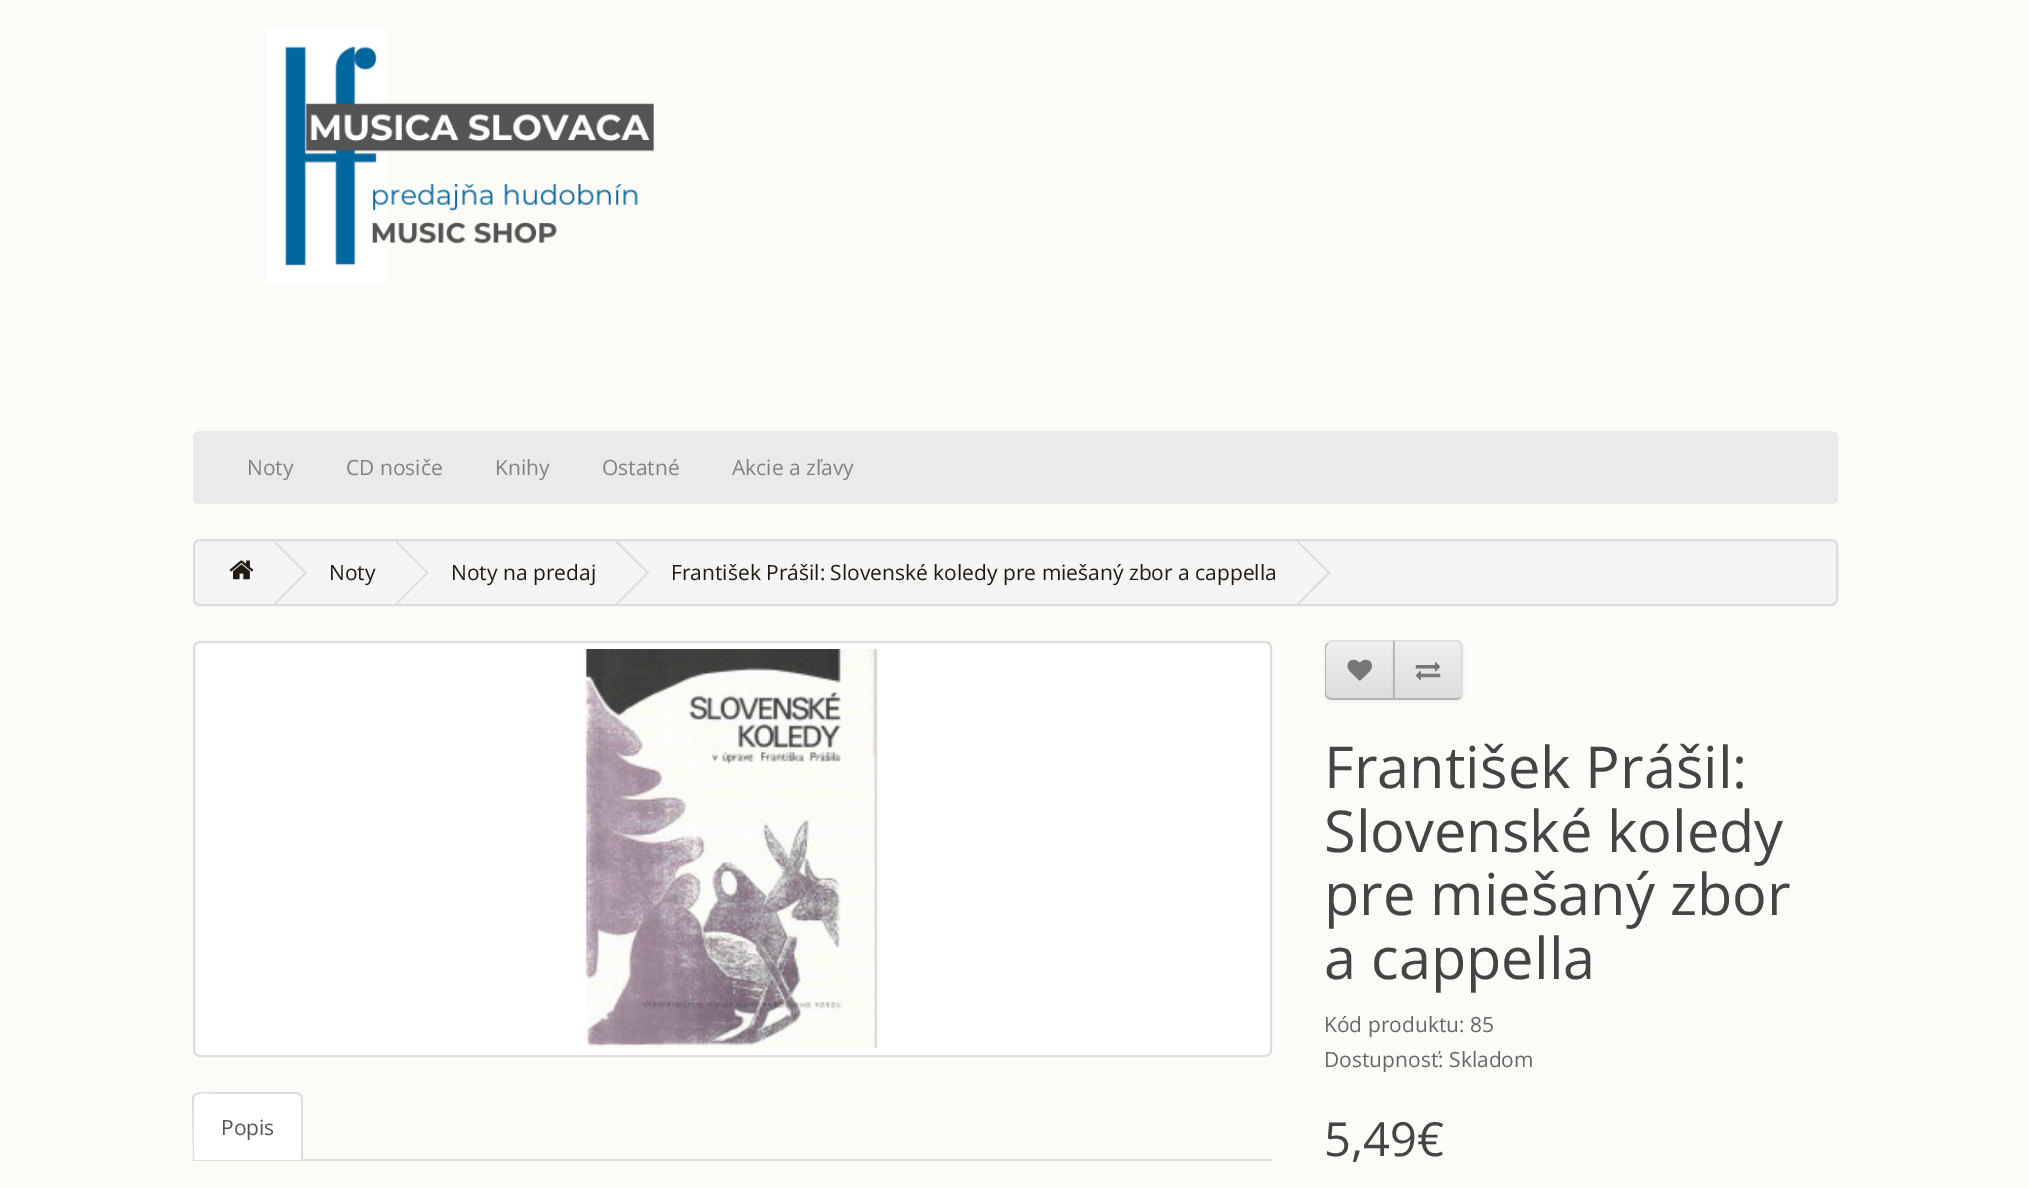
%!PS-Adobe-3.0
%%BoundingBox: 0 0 2029 1188
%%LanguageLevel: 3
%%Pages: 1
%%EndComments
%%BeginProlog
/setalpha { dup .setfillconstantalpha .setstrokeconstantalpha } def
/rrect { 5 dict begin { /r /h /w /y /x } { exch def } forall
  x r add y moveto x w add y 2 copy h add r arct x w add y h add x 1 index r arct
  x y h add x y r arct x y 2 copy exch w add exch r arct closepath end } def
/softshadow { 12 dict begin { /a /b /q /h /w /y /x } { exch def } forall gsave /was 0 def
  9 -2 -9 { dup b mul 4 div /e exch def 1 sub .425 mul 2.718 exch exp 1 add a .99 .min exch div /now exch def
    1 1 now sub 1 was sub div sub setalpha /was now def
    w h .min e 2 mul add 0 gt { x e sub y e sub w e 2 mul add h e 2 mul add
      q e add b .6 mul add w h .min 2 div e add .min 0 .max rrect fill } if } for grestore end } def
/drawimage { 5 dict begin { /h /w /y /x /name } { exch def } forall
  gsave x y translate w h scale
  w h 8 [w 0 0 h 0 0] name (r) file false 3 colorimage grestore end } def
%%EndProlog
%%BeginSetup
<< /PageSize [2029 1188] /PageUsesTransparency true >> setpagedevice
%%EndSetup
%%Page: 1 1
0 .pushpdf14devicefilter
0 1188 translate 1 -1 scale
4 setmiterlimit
0.992 0.984 0.969 setrgbcolor
0 0 2029 1188 rectfill
(images/1.raw) 266 28 388 256 drawimage
gsave
193 431 1645 73 7 rrect clip newpath
0.918 setgray
193 432 1645 70 rectfill
grestore
0.918 setgray
2 setlinewidth
194 432 1643 71 6 rrect stroke
0.961 setgray
194 540 1643 65 6 rrect gsave fill grestore
0.867 setgray
stroke
(images/2.raw) 229 560 25 20 drawimage
newpath 273.5 542 moveto 274.5 540.5 lineto 307 573 lineto 305.5 574 lineto closepath fill
newpath 273.5 604 moveto 305.5 571.5 lineto 307 573 lineto 274.5 605 lineto closepath fill
newpath 395.5 542 moveto 396.5 540.5 lineto 428.5 573 lineto 427.5 574 lineto closepath fill
newpath 395.5 604 moveto 427.5 571.5 lineto 428.5 573 lineto 396.5 605 lineto closepath fill
newpath 615.5 542 moveto 617 540.5 lineto 649 573 lineto 648 574 lineto closepath fill
newpath 615.5 604 moveto 648 571.5 lineto 649 573 lineto 617 605 lineto closepath fill
newpath 1297 542 moveto 1298 540.5 lineto 1330.5 573 lineto 1329 574 lineto closepath fill
newpath 1297 604 moveto 1329 571.5 lineto 1330.5 573 lineto 1298 605 lineto closepath fill
1 setgray
194 642 1077 414 6 rrect gsave fill grestore
0.867 setgray
stroke
(images/3.raw) 579 649 299 399 drawimage
193 1159 1079 2 rectfill
1 setgray
newpath 200 1092 moveto 296 1092 lineto 300 1092 303 1095 303 1099 curveto 303 1160 lineto 193 1160 lineto 193 1099 lineto 193 1095 196 1092 200 1092 curveto closepath fill
0.867 setgray
newpath 200 1092 moveto 198 1092 196 1093 194 1094 curveto 196 1095 lineto 200 1092 216 1094 216 1094 curveto 297 1094 lineto 299 1095 lineto 301 1094 lineto 300 1093 298 1092 296 1092 curveto closepath fill
newpath 303 1160 moveto 300 1158 lineto 301 1158 lineto 301 1099 lineto 301 1097 300 1096 299 1095 curveto 301 1094 lineto 303 1097 lineto closepath fill
newpath 192 1097 moveto 194 1094 lineto 196 1095 lineto 194 1098 lineto 194 1158 lineto 195 1158 lineto 193 1160 lineto closepath fill
0 setgray
1325 642 70 60 7 2 0.05 softshadow
gsave
newpath 1332 641 moveto 1395 641 lineto 1395 700 lineto 1332 700 lineto 1328 700 1325 697 1325 693 curveto 1325 648 lineto 1325 644 1328 641 1332 641 curveto closepath clip newpath
gsave newpath 1325 642 moveto 1393 642 lineto 1393 698 lineto 1325 698 lineto closepath clip newpath
<< /ShadingType 2 /ColorSpace /DeviceRGB /Coords [1360 642 1360 698] /Extend [true true] /Function << /FunctionType 2 /Domain [0 1] /C0 [0.933 0.933 0.933] /C1 [0.867 0.867 0.867] /N 1 >> >> shfill grestore
grestore
0.945 setgray
newpath 1332 644 moveto 1393 644 lineto 1393 642 lineto 1332 642 lineto 1330 642 1327 644 1327 646 curveto 1328 645 1330 644 1332 644 curveto closepath fill
0.867 setgray
newpath 1332 642 moveto 1331 642 1329 643 1328 644 curveto 1327 643 lineto 1330 640 lineto 1395 640 lineto 1393 642 lineto closepath fill
0.702 setgray
newpath 1395 700 moveto 1393 698 lineto 1332 698 lineto 1331 698 1329 698 1328 697 curveto 1327 698 lineto 1328 699 1330 700 1332 700 curveto closepath fill
0.718 setgray
newpath 1327 698 moveto 1326 697 1325 695 1325 693 curveto 1325 648 lineto 1325 646 1326 644 1327 643 curveto 1328 644 lineto 1327 645 1326 646 1326 648 curveto 1326 693 lineto 1326 695 1327 696 1328 697 curveto closepath fill
(images/4.raw) 1347 659 25 22 drawimage
0 setgray
1393 642 70 60 7 2 0.05 softshadow
gsave
newpath 1393 641 moveto 1456 641 lineto 1460 641 1463 644 1463 648 curveto 1463 693 lineto 1463 697 1460 700 1456 700 curveto 1393 700 lineto closepath clip newpath
gsave newpath 1395 642 moveto 1463 642 lineto 1463 698 lineto 1395 698 lineto closepath clip newpath
<< /ShadingType 2 /ColorSpace /DeviceRGB /Coords [1428 642 1428 698] /Extend [true true] /Function << /FunctionType 2 /Domain [0 1] /C0 [0.933 0.933 0.933] /C1 [0.867 0.867 0.867] /N 1 >> >> shfill grestore
grestore
0.945 setgray
newpath 1395 644 moveto 1456 644 lineto 1459 644 1461 646 1461 649 curveto 1461 647 lineto 1461 644 1459 642 1456 642 curveto 1395 642 lineto closepath fill
0.867 setgray
newpath 1395 642 moveto 1393 640 lineto 1458 640 lineto 1461 642 lineto 1460 644 lineto 1459 643 1458 642 1456 642 curveto closepath fill
newpath 1463 693 moveto 1463 648 lineto 1463 646 1462 644 1461 642 curveto 1460 644 lineto 1460 645 1461 646 1461 648 curveto 1461 693 lineto 1461 694 1460 696 1460 697 curveto 1461 698 lineto 1462 697 1463 695 1463 693 curveto closepath fill
0.702 setgray
newpath 1456 700 moveto 1458 700 1460 699 1461 698 curveto 1460 697 lineto 1459 698 1458 698 1456 698 curveto 1395 698 lineto 1393 700 lineto closepath fill
0.718 setgray
newpath 1393 700 moveto 1395 698 lineto 1395 642 lineto 1393 640 lineto closepath fill
(images/5.raw) 1415 662 26 19 drawimage
/OpenSans-Regular [21 0 0 -21 0 0] selectfont
0.51 setgray
247 475 moveto (Noty) show
346 475 moveto (CD nosiče) show
495 475 moveto (Knihy) show
602 475 moveto (Ostatné) show
732 475 moveto (Akcie a zľavy) show
0.133 0.102 0.067 setrgbcolor
329 580 moveto (Noty) show
451 580 moveto (Noty na predaj) show
671 580 moveto (František Prášil: Slovenské koledy pre miešaný zbor a cappella) show
0.333 setgray
221 1135 moveto (Popis) show
/OpenSans-Regular [57.75 0 0 -57.75 0 0] selectfont
0.267 setgray
1324 788 moveto (František Prášil:) show
1324 852 moveto (Slovenské koledy) show
1324 915 moveto (pre miešaný zbor) show
1324 979 moveto (a cappella) show
/OpenSans-Regular [21 0 0 -21 0 0] selectfont
0.4 setgray
1324 1032 moveto (Kód produktu: 85) show
1324 1067 moveto (Dostupnosť: Skladom) show
/OpenSans-Regular [47 0 0 -47 0 0] selectfont
0.267 setgray
1324 1156 moveto (5,49€) show
.poppdf14devicefilter showpage
%%EOF
